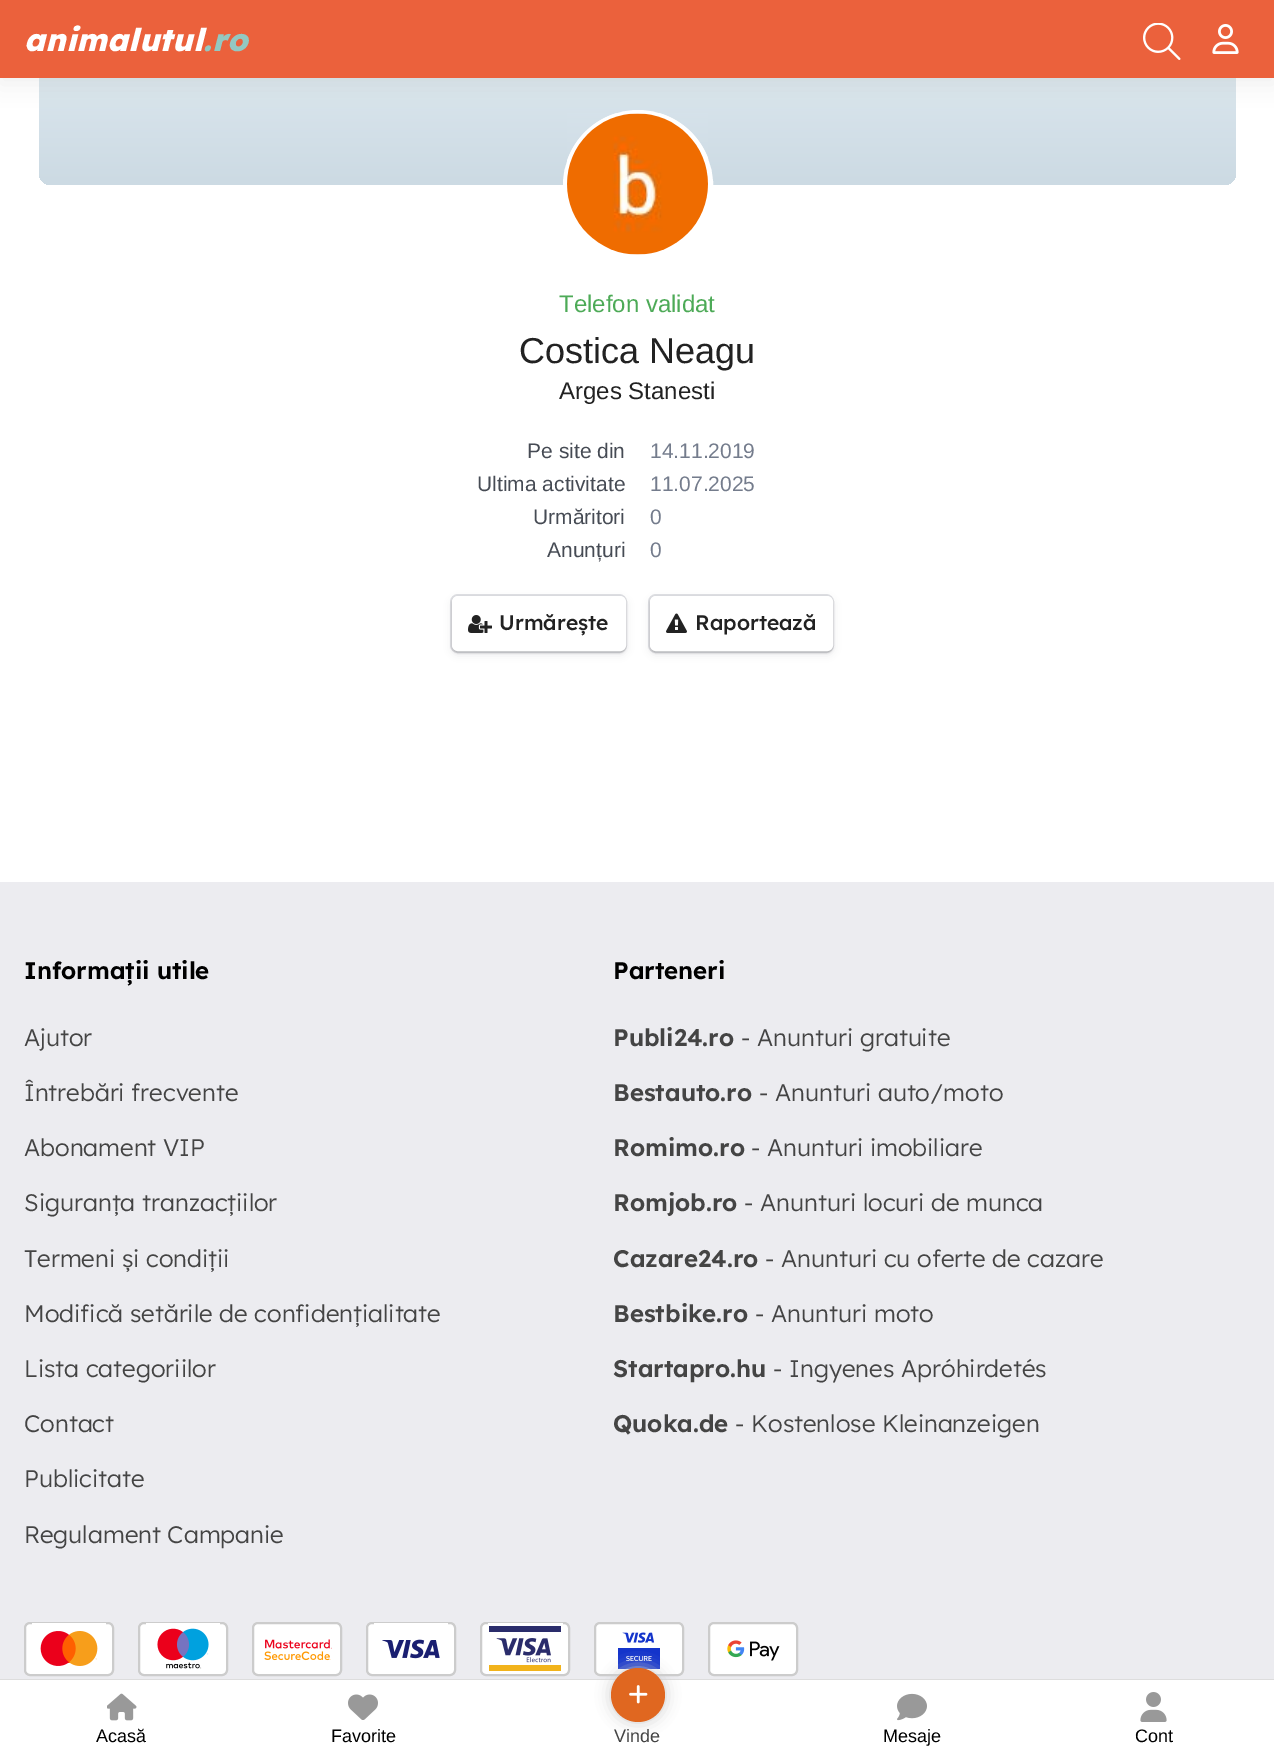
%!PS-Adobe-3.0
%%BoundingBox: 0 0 1274 1761
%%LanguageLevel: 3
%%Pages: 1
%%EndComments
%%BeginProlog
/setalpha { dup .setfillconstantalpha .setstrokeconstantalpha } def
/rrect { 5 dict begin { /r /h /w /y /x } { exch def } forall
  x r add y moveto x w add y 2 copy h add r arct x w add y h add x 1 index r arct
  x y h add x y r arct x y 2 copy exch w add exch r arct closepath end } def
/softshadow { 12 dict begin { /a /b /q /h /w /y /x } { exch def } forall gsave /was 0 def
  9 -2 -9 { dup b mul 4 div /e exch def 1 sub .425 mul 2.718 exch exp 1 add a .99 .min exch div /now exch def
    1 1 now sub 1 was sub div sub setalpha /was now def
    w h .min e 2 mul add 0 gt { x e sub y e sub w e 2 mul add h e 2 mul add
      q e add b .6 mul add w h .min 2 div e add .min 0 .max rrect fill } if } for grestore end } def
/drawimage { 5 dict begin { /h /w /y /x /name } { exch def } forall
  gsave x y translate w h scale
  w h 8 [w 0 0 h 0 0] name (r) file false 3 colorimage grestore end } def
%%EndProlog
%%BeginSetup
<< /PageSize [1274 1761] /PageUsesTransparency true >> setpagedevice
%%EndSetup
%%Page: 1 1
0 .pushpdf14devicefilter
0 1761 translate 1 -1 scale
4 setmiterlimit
1 setgray
0 0 1274 1761 rectfill
gsave 39 5 1197 180 12 rrect clip newpath
<< /ShadingType 2 /ColorSpace /DeviceRGB /Coords [638 4.5 638 185] /Extend [true true] /Function << /FunctionType 2 /Domain [0 1] /C0 [0.89 0.929 0.957] /C1 [0.8 0.855 0.89] /N 1 >> >> shfill grestore
newpath 638 185 72.5 0 360 arc closepath gsave fill grestore
5 setlinewidth
stroke
(images/8.raw) 567 113 141 142 drawimage
0.667 setgray
0 6 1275 78 0 11 0.19 softshadow
0.922 0.38 0.235 setrgbcolor
0 0 1274 78 rectfill
(images/1.raw) 1143 23 38 37 drawimage
(images/2.raw) 1212 24 27 30 drawimage
0.867 setgray
0 1679 1274 1 rectfill
(images/3.raw) 107 1693 30 28 drawimage
(images/4.raw) 348 1694 30 26 drawimage
0.925 0.925 0.941 setrgbcolor
0 882 1274 797 rectfill
1 setgray
595 1623 88 52 5 rrect gsave fill grestore
0.8 setgray
2 setlinewidth
stroke
(images/16.raw) 618 1632 42 37 drawimage
611 1668 54 54 27 7.5 1 softshadow
0.878 0.404 0.125 setrgbcolor
newpath 638 1695 27 0 360 arc closepath fill
(images/5.raw) 629 1685 19 19 drawimage
(images/6.raw) 897 1693 30 28 drawimage
(images/7.raw) 1140 1692 27 30 drawimage
0.235 0.259 0.341 setrgbcolor
452 599 174 55 6 4 0.12 softshadow
0.16 setalpha
451 595 175 57 7 rrect stroke
1 setalpha
0 setgray
452 597 174 56 6 1 0.12 softshadow
1 setgray
453 597 172 53 5 rrect gsave fill grestore
stroke
(images/9.raw) 468 615 24 18 drawimage
0.235 0.259 0.341 setrgbcolor
650 599 183 55 6 4 0.12 softshadow
0.16 setalpha
649 595 184 57 7 rrect stroke
1 setalpha
0 setgray
650 597 183 56 6 1 0.12 softshadow
1 setgray
651 597 181 53 5 rrect gsave fill grestore
stroke
(images/10.raw) 666 613 21 20 drawimage
25 1623 88 52 5 rrect gsave fill grestore
0.8 setgray
stroke
(images/11.raw) 32 1623 74 43 drawimage
1 setgray
139 1623 88 52 5 rrect gsave fill grestore
0.8 setgray
stroke
(images/12.raw) 146 1623 74 46 drawimage
1 setgray
253 1623 88 52 5 rrect gsave fill grestore
0.8 setgray
stroke
(images/13.raw) 264 1639 68 22 drawimage
1 setgray
367 1623 88 52 5 rrect gsave fill grestore
0.8 setgray
stroke
(images/14.raw) 374 1623 74 36 drawimage
1 setgray
481 1623 88 52 5 rrect gsave fill grestore
0.8 setgray
stroke
(images/15.raw) 488 1623 75 48 drawimage
1 setgray
709 1623 88 52 5 rrect gsave fill grestore
0.8 setgray
stroke
(images/17.raw) 727 1640 53 21 drawimage
/Lexend-ExtraBoldItalic [31.5 0 0 -31.5 0 0] selectfont
1 setgray
24 51 moveto (animalutul) show
0.576 0.784 0.761 setrgbcolor
203 51 moveto (.ro) show
/LiberationSans-Regular [18 0 0 -18 0 0] selectfont
0 setgray
96 1742 moveto (Acasă) show
331 1742 moveto (Favorite) show
0.267 setgray
614 1742 moveto (Vinde) show
0 setgray
883 1742 moveto (Mesaje) show
1135 1742 moveto (Cont) show
/LiberationSans-Regular [24 0 0 -24 0 0] selectfont
0.302 0.667 0.341 setrgbcolor
559 312 moveto (Telefon validat) show
/LiberationSans-Regular [36 0 0 -36 0 0] selectfont
0.133 setgray
519 363 moveto (Costica Neagu) show
/LiberationSans-Regular [24 0 0 -24 0 0] selectfont
559 399 moveto (Arges Stanesti) show
/LiberationSans-Regular [21 0 0 -21 0 0] selectfont
0.275 0.294 0.329 setrgbcolor
527 458 moveto (Pe site din) show
0.455 0.486 0.549 setrgbcolor
650 458 moveto (14.11.2019) show
0.275 0.294 0.329 setrgbcolor
477 491 moveto (Ultima activitate) show
0.455 0.486 0.549 setrgbcolor
650 491 moveto (11.07.2025) show
0.275 0.294 0.329 setrgbcolor
533 524 moveto (Urmăritori) show
0.455 0.486 0.549 setrgbcolor
650 524 moveto (0) show
0.275 0.294 0.329 setrgbcolor
547 557 moveto (Anunțuri) show
0.455 0.486 0.549 setrgbcolor
650 557 moveto (0) show
/Lexend-Medium [21 0 0 -21 0 0] selectfont
0.133 setgray
499 630 moveto (Urmărește) show
695 630 moveto (Raportează) show
/Lexend-SemiBold [24 0 0 -24 0 0] selectfont
0 setgray
24 979 moveto (Informații utile) show
/Lexend-Light [24 0 0 -24 0 0] selectfont
0.267 setgray
24 1046 moveto (Ajutor) show
24 1101 moveto (Întrebări frecvente) show
24 1156 moveto (Abonament VIP) show
24 1211 moveto (Siguranța tranzacțiilor) show
24 1267 moveto (Termeni și condiții) show
24 1322 moveto (Modifică setările de confidențialitate) show
24 1377 moveto (Lista categoriilor) show
24 1432 moveto (Contact) show
24 1487 moveto (Publicitate) show
24 1543 moveto (Regulament Campanie) show
/Lexend-SemiBold [24 0 0 -24 0 0] selectfont
0 setgray
613 979 moveto (Parteneri) show
0.267 setgray
613 1046 moveto (Publi24.ro) show
/Lexend-Light [24 0 0 -24 0 0] selectfont
741 1046 moveto (- Anunturi gratuite) show
/Lexend-SemiBold [24 0 0 -24 0 0] selectfont
613 1101 moveto (Bestauto.ro) show
/Lexend-Light [24 0 0 -24 0 0] selectfont
759 1101 moveto (- Anunturi auto/moto) show
/Lexend-SemiBold [24 0 0 -24 0 0] selectfont
613 1156 moveto (Romimo.ro) show
/Lexend-Light [24 0 0 -24 0 0] selectfont
751 1156 moveto (- Anunturi imobiliare) show
/Lexend-SemiBold [24 0 0 -24 0 0] selectfont
613 1211 moveto (Romjob.ro) show
/Lexend-Light [24 0 0 -24 0 0] selectfont
744 1211 moveto (- Anunturi locuri de munca) show
/Lexend-SemiBold [24 0 0 -24 0 0] selectfont
613 1267 moveto (Cazare24.ro) show
/Lexend-Light [24 0 0 -24 0 0] selectfont
765 1267 moveto (- Anunturi cu oferte de cazare) show
/Lexend-SemiBold [24 0 0 -24 0 0] selectfont
613 1322 moveto (Bestbike.ro) show
/Lexend-Light [24 0 0 -24 0 0] selectfont
755 1322 moveto (- Anunturi moto) show
/Lexend-SemiBold [24 0 0 -24 0 0] selectfont
613 1377 moveto (Startapro.hu) show
/Lexend-Light [24 0 0 -24 0 0] selectfont
773 1377 moveto (- Ingyenes Apróhirdetés) show
/Lexend-SemiBold [24 0 0 -24 0 0] selectfont
613 1432 moveto (Quoka.de) show
/Lexend-Light [24 0 0 -24 0 0] selectfont
735 1432 moveto (- Kostenlose Kleinanzeigen) show
.poppdf14devicefilter showpage
%%EOF
